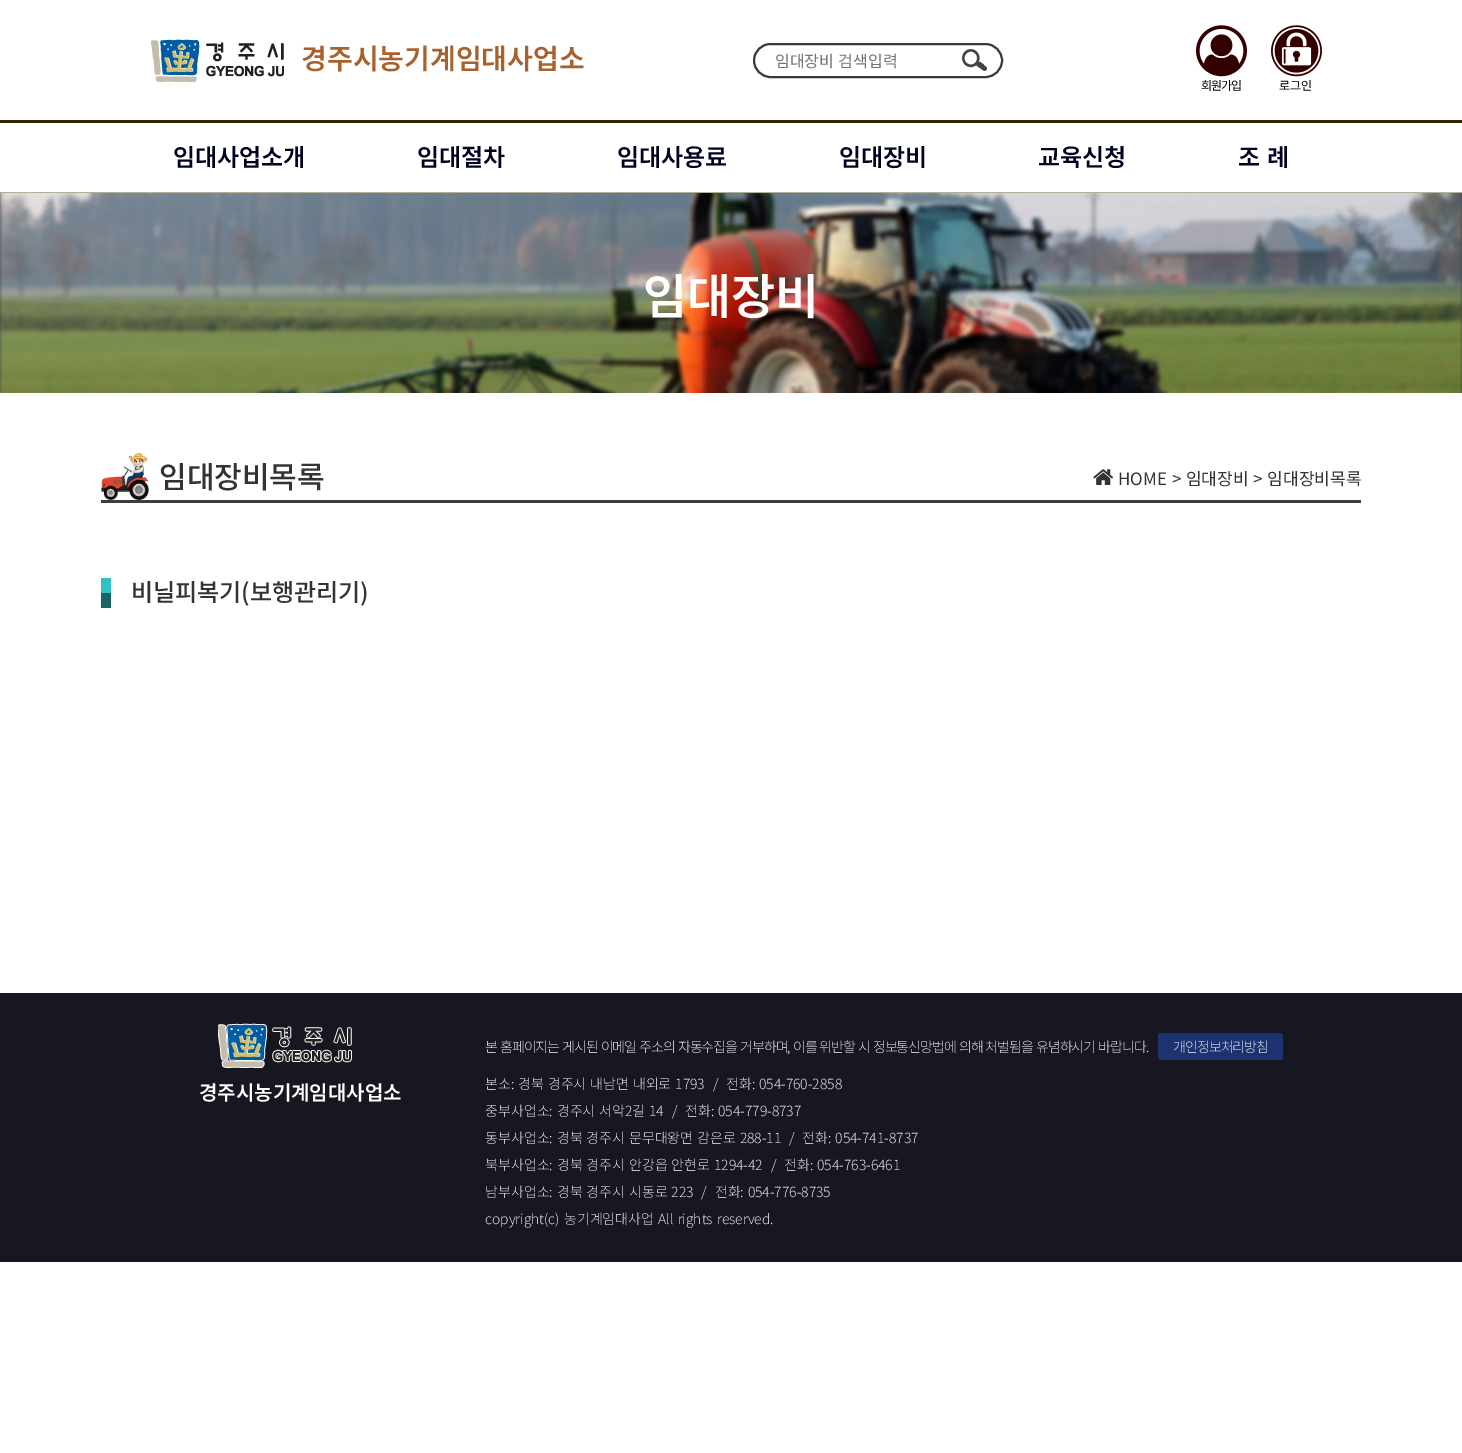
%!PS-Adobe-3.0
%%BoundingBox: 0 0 1462 1453
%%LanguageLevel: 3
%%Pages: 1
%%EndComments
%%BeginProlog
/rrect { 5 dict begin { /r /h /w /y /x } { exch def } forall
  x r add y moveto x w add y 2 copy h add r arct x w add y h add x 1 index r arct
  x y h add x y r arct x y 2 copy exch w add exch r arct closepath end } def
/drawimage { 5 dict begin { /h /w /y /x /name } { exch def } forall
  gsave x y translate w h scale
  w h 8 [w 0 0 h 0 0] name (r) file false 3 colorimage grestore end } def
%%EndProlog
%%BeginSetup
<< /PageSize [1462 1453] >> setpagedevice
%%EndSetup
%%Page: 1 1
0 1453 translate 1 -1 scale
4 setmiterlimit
1 setgray
0 0 1462 1453 rectfill
0.192 0.137 0.024 setrgbcolor
0 120 1462 3 rectfill
(images/1.raw) 151 39 133 43 drawimage
0.227 setgray
2 setlinewidth
754 44 248 33 16.5 rrect stroke
(images/2.raw) 962 49 25 22 drawimage
(images/3.raw) 1196 25 51 52 drawimage
(images/4.raw) 1271 25 51 52 drawimage
0.69 0.694 0.596 setrgbcolor
0 192 1462 1 rectfill
0.239 setgray
0 193 1462 200 rectfill
(images/5.raw) 0 193 1462 200 drawimage
101 500 1260 3 rectfill
(images/6.raw) 101 453 48 47 drawimage
(images/7.raw) 1093 469 21 16 drawimage
(images/8.raw) 101 578 10 30 drawimage
0.086 0.09 0.129 setrgbcolor
0 993 1462 269 rectfill
(images/9.raw) 218 1023 134 45 drawimage
0.114 0.2 0.443 setrgbcolor
1158 1033 125 27 3 rrect fill
/NotoSansKR-SemiBold [28 0 0 -28 0 0] selectfont
0.663 0.38 0.173 setrgbcolor
301 69 moveto (경주시농기계임대사업소) show
/NotoSansKR-Regular [16 0 0 -16 0 0] selectfont
0.459 setgray
775 67 moveto 1 0 32 (임대장비 검색입력) widthshow
/NotoSansKR-Regular [12 0 0 -12 0 0] selectfont
0 setgray
1201 90 moveto -1 0 (회원가입) ashow
1279 90 moveto (로그인) show
/NotoSansKR-SemiBold [24 0 0 -24 0 0] selectfont
0 0.008 0.133 setrgbcolor
173 166 moveto (임대사업소개) show
417 166 moveto (임대절차) show
617 166 moveto (임대사용료) show
839 166 moveto (임대장비) show
1038 166 moveto (교육신청) show
1238 166 moveto 1 0 32 (조 례) widthshow
/NotoSansKR-SemiBold [48 0 0 -48 0 0] selectfont
1 setgray
643 314 moveto (임대장비) show
/NotoSansKR-Medium [30 0 0 -30 0 0] selectfont
0.2 setgray
159 488 moveto (임대장비목록) show
/NotoSansKR-Regular [17 0 0 -17 0 0] selectfont
1118 485 moveto 1 0 32 (HOME > 임대장비 > 임대장비목록) widthshow
/NotoSansKR-Medium [24 0 0 -24 0 0] selectfont
131 601 moveto (비닐피복기\(보행관리기\)) show
/NotoSansKR-SemiBold [20 0 0 -20 0 0] selectfont
1 setgray
199 1100 moveto (경주시농기계임대사업소) show
/NotoSansKR-ExtraLight [14 0 0 -14 0 0] selectfont
485 1052 moveto 0.8 0 32 -1 0 (본 홈페이지는 게시된 이메일 주소의 자동수집을 거부하며, 이를 위반할 시 정보통신망법에 의해 처벌됨을 유념하시기 바랍니다.) awidthshow
1173 1052 moveto -1 0 (개인정보처리방침) ashow
485 1089 moveto 0.8 0 32 (본소: 경북 경주시 내남면 내외로 1793  /  전화: 054-760-2858) widthshow
485 1116 moveto 0.8 0 32 (중부사업소: 경주시 서악2길 14  /  전화: 054-779-8737) widthshow
485 1143 moveto 0.8 0 32 (동부사업소: 경북 경주시 문무대왕면 감은로 288-11  /  전화: 054-741-8737) widthshow
485 1170 moveto 0.8 0 32 (북부사업소: 경북 경주시 안강읍 안현로 1294-42  /  전화: 054-763-6461) widthshow
485 1197 moveto 0.8 0 32 (남부사업소: 경북 경주시 시동로 223  /  전화: 054-776-8735) widthshow
485 1224 moveto 1 0 32 (copyright\(c\) 농기계임대사업 All rights reserved.) widthshow
showpage
%%EOF
